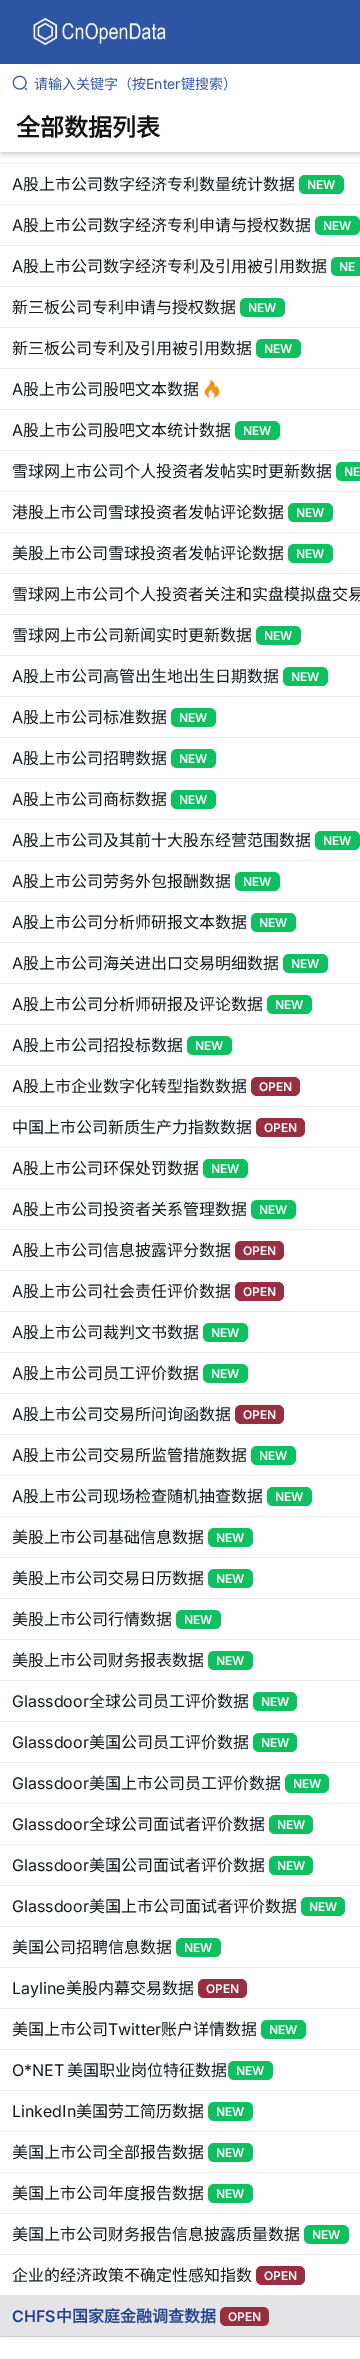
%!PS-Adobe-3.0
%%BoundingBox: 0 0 360 2359
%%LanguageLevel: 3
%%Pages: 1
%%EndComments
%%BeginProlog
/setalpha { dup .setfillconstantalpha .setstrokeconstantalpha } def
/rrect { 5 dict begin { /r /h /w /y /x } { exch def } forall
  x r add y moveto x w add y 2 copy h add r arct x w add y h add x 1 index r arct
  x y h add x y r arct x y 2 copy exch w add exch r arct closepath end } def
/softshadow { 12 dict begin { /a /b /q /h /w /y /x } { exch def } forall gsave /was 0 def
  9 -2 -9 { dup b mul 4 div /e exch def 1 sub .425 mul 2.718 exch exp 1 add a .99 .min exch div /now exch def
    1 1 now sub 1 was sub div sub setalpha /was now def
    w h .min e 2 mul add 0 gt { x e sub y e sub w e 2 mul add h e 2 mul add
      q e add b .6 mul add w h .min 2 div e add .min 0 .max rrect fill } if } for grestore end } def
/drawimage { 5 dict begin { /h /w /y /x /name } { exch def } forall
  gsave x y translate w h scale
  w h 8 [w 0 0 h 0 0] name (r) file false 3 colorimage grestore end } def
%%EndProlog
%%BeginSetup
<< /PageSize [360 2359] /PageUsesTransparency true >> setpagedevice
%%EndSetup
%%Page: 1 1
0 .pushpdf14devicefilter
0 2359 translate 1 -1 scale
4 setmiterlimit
1 setgray
0 0 360 2359 rectfill
0.18 0.333 0.643 setrgbcolor
0 0 360 64 rectfill
(images/1.raw) 33 17 133 29 drawimage
(images/2.raw) 12 75 16 16 drawimage
gsave
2 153 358 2 rectclip
0 setgray
2 108 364 45 0 2 0.1 softshadow
grestore
0.898 0.906 0.922 setrgbcolor
0 163 360 1 rectfill
gsave
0 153 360 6 rectclip
0 setgray
1 109 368 47 0 3 0.1 softshadow
grestore
0.859 setgray
0 152 360 1 rectfill
0.898 0.906 0.922 setrgbcolor
0 204 360 1 rectfill
0.059 0.753 0.376 setrgbcolor
299 175 45 19 6 rrect fill
0.898 0.906 0.922 setrgbcolor
0 245 360 1 rectfill
0.059 0.753 0.376 setrgbcolor
315 216 45 19 6 rrect fill
0.898 0.906 0.922 setrgbcolor
0 286 360 1 rectfill
0.059 0.753 0.376 setrgbcolor
newpath 337 257 moveto 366 257 lineto 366 276 lineto 337 276 lineto 333.5 276 331 273.5 331 270 curveto 331 263 lineto 331 259.5 333.5 257 337 257 curveto closepath fill
0.898 0.906 0.922 setrgbcolor
0 327 360 1 rectfill
0.059 0.753 0.376 setrgbcolor
240 298 45 19 6 rrect fill
0.898 0.906 0.922 setrgbcolor
0 368 360 1 rectfill
0.059 0.753 0.376 setrgbcolor
256 339 45 19 6 rrect fill
0.898 0.906 0.922 setrgbcolor
0 409 360 1 rectfill
(images/3.raw) 204 380 16 18 drawimage
0 450 360 1 rectfill
0.059 0.753 0.376 setrgbcolor
235 421 45 19 6 rrect fill
0.898 0.906 0.922 setrgbcolor
0 491 360 1 rectfill
0.059 0.753 0.376 setrgbcolor
newpath 342 462 moveto 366 462 lineto 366 481 lineto 342 481 lineto 338.5 481 336 478.5 336 475 curveto 336 468 lineto 336 464.5 338.5 462 342 462 curveto closepath fill
0.898 0.906 0.922 setrgbcolor
0 532 360 1 rectfill
0.059 0.753 0.376 setrgbcolor
288 503 45 19 6 rrect fill
0.898 0.906 0.922 setrgbcolor
0 573 360 1 rectfill
0.059 0.753 0.376 setrgbcolor
288 544 45 19 6 rrect fill
0.898 0.906 0.922 setrgbcolor
0 614 360 1 rectfill
0 655 360 1 rectfill
0.059 0.753 0.376 setrgbcolor
256 626 45 19 6 rrect fill
0.898 0.906 0.922 setrgbcolor
0 696 360 1 rectfill
0.059 0.753 0.376 setrgbcolor
283 667 45 19 6 rrect fill
0.898 0.906 0.922 setrgbcolor
0 737 360 1 rectfill
0.059 0.753 0.376 setrgbcolor
171 708 45 19 6 rrect fill
0.898 0.906 0.922 setrgbcolor
0 778 360 1 rectfill
0.059 0.753 0.376 setrgbcolor
171 749 45 19 6 rrect fill
0.898 0.906 0.922 setrgbcolor
0 819 360 1 rectfill
0.059 0.753 0.376 setrgbcolor
171 790 45 19 6 rrect fill
0.898 0.906 0.922 setrgbcolor
0 860 360 1 rectfill
0.059 0.753 0.376 setrgbcolor
315 831 45 19 6 rrect fill
0.898 0.906 0.922 setrgbcolor
0 901 360 1 rectfill
0.059 0.753 0.376 setrgbcolor
235 872 45 19 6 rrect fill
0.898 0.906 0.922 setrgbcolor
0 942 360 1 rectfill
0.059 0.753 0.376 setrgbcolor
251 913 45 19 6 rrect fill
0.898 0.906 0.922 setrgbcolor
0 983 360 1 rectfill
0.059 0.753 0.376 setrgbcolor
283 954 45 19 6 rrect fill
0.898 0.906 0.922 setrgbcolor
0 1024 360 1 rectfill
0.059 0.753 0.376 setrgbcolor
267 995 45 19 6 rrect fill
0.898 0.906 0.922 setrgbcolor
0 1065 360 1 rectfill
0.059 0.753 0.376 setrgbcolor
187 1036 45 19 6 rrect fill
0.898 0.906 0.922 setrgbcolor
0 1106 360 1 rectfill
0.596 0.184 0.251 setrgbcolor
251 1077 49 19 6 rrect fill
0.898 0.906 0.922 setrgbcolor
0 1147 360 1 rectfill
0.596 0.184 0.251 setrgbcolor
256 1118 49 19 6 rrect fill
0.898 0.906 0.922 setrgbcolor
0 1188 360 1 rectfill
0.059 0.753 0.376 setrgbcolor
203 1159 45 19 6 rrect fill
0.898 0.906 0.922 setrgbcolor
0 1229 360 1 rectfill
0.059 0.753 0.376 setrgbcolor
251 1200 45 19 6 rrect fill
0.898 0.906 0.922 setrgbcolor
0 1270 360 1 rectfill
0.596 0.184 0.251 setrgbcolor
235 1241 49 19 6 rrect fill
0.898 0.906 0.922 setrgbcolor
0 1311 360 1 rectfill
0.596 0.184 0.251 setrgbcolor
235 1282 49 19 6 rrect fill
0.898 0.906 0.922 setrgbcolor
0 1352 360 1 rectfill
0.059 0.753 0.376 setrgbcolor
203 1323 45 19 6 rrect fill
0.898 0.906 0.922 setrgbcolor
0 1393 360 1 rectfill
0.059 0.753 0.376 setrgbcolor
203 1364 45 19 6 rrect fill
0.898 0.906 0.922 setrgbcolor
0 1434 360 1 rectfill
0.596 0.184 0.251 setrgbcolor
235 1405 49 19 6 rrect fill
0.898 0.906 0.922 setrgbcolor
0 1475 360 1 rectfill
0.059 0.753 0.376 setrgbcolor
251 1446 45 19 6 rrect fill
0.898 0.906 0.922 setrgbcolor
0 1516 360 1 rectfill
0.059 0.753 0.376 setrgbcolor
267 1487 45 19 6 rrect fill
0.898 0.906 0.922 setrgbcolor
0 1557 360 1 rectfill
0.059 0.753 0.376 setrgbcolor
208 1528 45 19 6 rrect fill
0.898 0.906 0.922 setrgbcolor
0 1598 360 1 rectfill
0.059 0.753 0.376 setrgbcolor
208 1569 45 19 6 rrect fill
0.898 0.906 0.922 setrgbcolor
0 1639 360 1 rectfill
0.059 0.753 0.376 setrgbcolor
176 1610 45 19 6 rrect fill
0.898 0.906 0.922 setrgbcolor
0 1680 360 1 rectfill
0.059 0.753 0.376 setrgbcolor
208 1651 45 19 6 rrect fill
0.898 0.906 0.922 setrgbcolor
0 1721 360 1 rectfill
0.059 0.753 0.376 setrgbcolor
253 1692 44 19 6 rrect fill
0.898 0.906 0.922 setrgbcolor
0 1762 360 1 rectfill
0.059 0.753 0.376 setrgbcolor
253 1733 44 19 6 rrect fill
0.898 0.906 0.922 setrgbcolor
0 1803 360 1 rectfill
0.059 0.753 0.376 setrgbcolor
285 1774 44 19 6 rrect fill
0.898 0.906 0.922 setrgbcolor
0 1844 360 1 rectfill
0.059 0.753 0.376 setrgbcolor
269 1815 44 19 6 rrect fill
0.898 0.906 0.922 setrgbcolor
0 1885 360 1 rectfill
0.059 0.753 0.376 setrgbcolor
269 1856 44 19 6 rrect fill
0.898 0.906 0.922 setrgbcolor
0 1926 360 1 rectfill
0.059 0.753 0.376 setrgbcolor
301 1897 44 19 6 rrect fill
0.898 0.906 0.922 setrgbcolor
0 1967 360 1 rectfill
0.059 0.753 0.376 setrgbcolor
176 1938 45 19 6 rrect fill
0.898 0.906 0.922 setrgbcolor
0 2008 360 1 rectfill
0.596 0.184 0.251 setrgbcolor
198 1979 49 19 6 rrect fill
0.898 0.906 0.922 setrgbcolor
0 2049 360 1 rectfill
0.059 0.753 0.376 setrgbcolor
261 2020 45 19 6 rrect fill
0.898 0.906 0.922 setrgbcolor
0 2090 360 1 rectfill
0.059 0.753 0.376 setrgbcolor
228 2061 45 19 6 rrect fill
0.898 0.906 0.922 setrgbcolor
0 2131 360 1 rectfill
0.059 0.753 0.376 setrgbcolor
208 2102 45 19 6 rrect fill
0.898 0.906 0.922 setrgbcolor
0 2172 360 1 rectfill
0.059 0.753 0.376 setrgbcolor
208 2143 45 19 6 rrect fill
0.898 0.906 0.922 setrgbcolor
0 2213 360 1 rectfill
0.059 0.753 0.376 setrgbcolor
208 2184 45 19 6 rrect fill
0.898 0.906 0.922 setrgbcolor
0 2254 360 1 rectfill
0.059 0.753 0.376 setrgbcolor
304 2225 45 19 6 rrect fill
0.898 0.906 0.922 setrgbcolor
0 2295 360 1 rectfill
0.596 0.184 0.251 setrgbcolor
256 2266 49 19 6 rrect fill
0.898 0.906 0.922 setrgbcolor
0 2336 360 1 rectfill
0 setgray
2 2300 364 36 0 2 0.1 softshadow
gsave
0 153 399 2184 rectclip
1 2301 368 38 0 3 0.1 softshadow
grestore
0.894 0.894 0.906 setrgbcolor
0 2296 360 40 rectfill
0.596 0.184 0.251 setrgbcolor
220 2307 49 19 6 rrect fill
/NotoSansCJKSC-Regular [14 0 0 -14 0 0] selectfont
0.18 0.333 0.643 setrgbcolor
34 89 moveto (请输入关键字（按) show
/Inter-Regular [14 0 0 -14 0 0] selectfont
146 89 moveto (Enter) show
/NotoSansCJKSC-Regular [14 0 0 -14 0 0] selectfont
181 89 moveto (键搜索）) show
/NotoSansCJKSC-Bold [24 0 0 -24 0 0] selectfont
0.067 setgray
16 136 moveto (全部数据列表) show
/Inter-Regular [16 0 0 -16 0 0] selectfont
0.067 0.094 0.11 setrgbcolor
12 190 moveto (A) show
/NotoSansCJKSC-Regular [16 0 0 -16 0 0] selectfont
23 190 moveto (股上市公司数字经济专利数量统计数据) show
/Inter-SemiBold [12 0 0 -12 0 0] selectfont
1 setgray
307 189 moveto (NEW) show
/Inter-Regular [16 0 0 -16 0 0] selectfont
0.067 0.094 0.11 setrgbcolor
12 231 moveto (A) show
/NotoSansCJKSC-Regular [16 0 0 -16 0 0] selectfont
23 231 moveto (股上市公司数字经济专利申请与授权数据) show
/Inter-SemiBold [12 0 0 -12 0 0] selectfont
1 setgray
323 230 moveto (NEW) show
/Inter-Regular [16 0 0 -16 0 0] selectfont
0.067 0.094 0.11 setrgbcolor
12 272 moveto (A) show
/NotoSansCJKSC-Regular [16 0 0 -16 0 0] selectfont
23 272 moveto (股上市公司数字经济专利及引用被引用数据) show
/Inter-SemiBold [12 0 0 -12 0 0] selectfont
1 setgray
339 271 moveto (NE) show
/NotoSansCJKSC-Regular [16 0 0 -16 0 0] selectfont
0.067 0.094 0.11 setrgbcolor
12 313 moveto (新三板公司专利申请与授权数据) show
/Inter-SemiBold [12 0 0 -12 0 0] selectfont
1 setgray
248 312 moveto (NEW) show
/NotoSansCJKSC-Regular [16 0 0 -16 0 0] selectfont
0.067 0.094 0.11 setrgbcolor
12 354 moveto (新三板公司专利及引用被引用数据) show
/Inter-SemiBold [12 0 0 -12 0 0] selectfont
1 setgray
264 353 moveto (NEW) show
/Inter-Regular [16 0 0 -16 0 0] selectfont
0.067 0.094 0.11 setrgbcolor
12 395 moveto (A) show
/NotoSansCJKSC-Regular [16 0 0 -16 0 0] selectfont
23 395 moveto (股上市公司股吧文本数据) show
/Inter-Regular [16 0 0 -16 0 0] selectfont
12 436 moveto (A) show
/NotoSansCJKSC-Regular [16 0 0 -16 0 0] selectfont
23 436 moveto (股上市公司股吧文本统计数据) show
/Inter-SemiBold [12 0 0 -12 0 0] selectfont
1 setgray
243 435 moveto (NEW) show
/NotoSansCJKSC-Regular [16 0 0 -16 0 0] selectfont
0.067 0.094 0.11 setrgbcolor
12 477 moveto (雪球网上市公司个人投资者发帖实时更新数据) show
/Inter-SemiBold [12 0 0 -12 0 0] selectfont
1 setgray
344 476 moveto (NE) show
/NotoSansCJKSC-Regular [16 0 0 -16 0 0] selectfont
0.067 0.094 0.11 setrgbcolor
12 518 moveto (港股上市公司雪球投资者发帖评论数据) show
/Inter-SemiBold [12 0 0 -12 0 0] selectfont
1 setgray
296 517 moveto (NEW) show
/NotoSansCJKSC-Regular [16 0 0 -16 0 0] selectfont
0.067 0.094 0.11 setrgbcolor
12 559 moveto (美股上市公司雪球投资者发帖评论数据) show
/Inter-SemiBold [12 0 0 -12 0 0] selectfont
1 setgray
296 558 moveto (NEW) show
/NotoSansCJKSC-Regular [16 0 0 -16 0 0] selectfont
0.067 0.094 0.11 setrgbcolor
12 600 moveto (雪球网上市公司个人投资者关注和实盘模拟盘交易) show
12 641 moveto (雪球网上市公司新闻实时更新数据) show
/Inter-SemiBold [12 0 0 -12 0 0] selectfont
1 setgray
264 640 moveto (NEW) show
/Inter-Regular [16 0 0 -16 0 0] selectfont
0.067 0.094 0.11 setrgbcolor
12 682 moveto (A) show
/NotoSansCJKSC-Regular [16 0 0 -16 0 0] selectfont
23 682 moveto (股上市公司高管出生地出生日期数据) show
/Inter-SemiBold [12 0 0 -12 0 0] selectfont
1 setgray
291 681 moveto (NEW) show
/Inter-Regular [16 0 0 -16 0 0] selectfont
0.067 0.094 0.11 setrgbcolor
12 723 moveto (A) show
/NotoSansCJKSC-Regular [16 0 0 -16 0 0] selectfont
23 723 moveto (股上市公司标准数据) show
/Inter-SemiBold [12 0 0 -12 0 0] selectfont
1 setgray
179 722 moveto (NEW) show
/Inter-Regular [16 0 0 -16 0 0] selectfont
0.067 0.094 0.11 setrgbcolor
12 764 moveto (A) show
/NotoSansCJKSC-Regular [16 0 0 -16 0 0] selectfont
23 764 moveto (股上市公司招聘数据) show
/Inter-SemiBold [12 0 0 -12 0 0] selectfont
1 setgray
179 763 moveto (NEW) show
/Inter-Regular [16 0 0 -16 0 0] selectfont
0.067 0.094 0.11 setrgbcolor
12 805 moveto (A) show
/NotoSansCJKSC-Regular [16 0 0 -16 0 0] selectfont
23 805 moveto (股上市公司商标数据) show
/Inter-SemiBold [12 0 0 -12 0 0] selectfont
1 setgray
179 804 moveto (NEW) show
/Inter-Regular [16 0 0 -16 0 0] selectfont
0.067 0.094 0.11 setrgbcolor
12 846 moveto (A) show
/NotoSansCJKSC-Regular [16 0 0 -16 0 0] selectfont
23 846 moveto (股上市公司及其前十大股东经营范围数据) show
/Inter-SemiBold [12 0 0 -12 0 0] selectfont
1 setgray
323 845 moveto (NEW) show
/Inter-Regular [16 0 0 -16 0 0] selectfont
0.067 0.094 0.11 setrgbcolor
12 887 moveto (A) show
/NotoSansCJKSC-Regular [16 0 0 -16 0 0] selectfont
23 887 moveto (股上市公司劳务外包报酬数据) show
/Inter-SemiBold [12 0 0 -12 0 0] selectfont
1 setgray
243 886 moveto (NEW) show
/Inter-Regular [16 0 0 -16 0 0] selectfont
0.067 0.094 0.11 setrgbcolor
12 928 moveto (A) show
/NotoSansCJKSC-Regular [16 0 0 -16 0 0] selectfont
23 928 moveto (股上市公司分析师研报文本数据) show
/Inter-SemiBold [12 0 0 -12 0 0] selectfont
1 setgray
259 927 moveto (NEW) show
/Inter-Regular [16 0 0 -16 0 0] selectfont
0.067 0.094 0.11 setrgbcolor
12 969 moveto (A) show
/NotoSansCJKSC-Regular [16 0 0 -16 0 0] selectfont
23 969 moveto (股上市公司海关进出口交易明细数据) show
/Inter-SemiBold [12 0 0 -12 0 0] selectfont
1 setgray
291 968 moveto (NEW) show
/Inter-Regular [16 0 0 -16 0 0] selectfont
0.067 0.094 0.11 setrgbcolor
12 1010 moveto (A) show
/NotoSansCJKSC-Regular [16 0 0 -16 0 0] selectfont
23 1010 moveto (股上市公司分析师研报及评论数据) show
/Inter-SemiBold [12 0 0 -12 0 0] selectfont
1 setgray
275 1009 moveto (NEW) show
/Inter-Regular [16 0 0 -16 0 0] selectfont
0.067 0.094 0.11 setrgbcolor
12 1051 moveto (A) show
/NotoSansCJKSC-Regular [16 0 0 -16 0 0] selectfont
23 1051 moveto (股上市公司招投标数据) show
/Inter-SemiBold [12 0 0 -12 0 0] selectfont
1 setgray
195 1050 moveto (NEW) show
/Inter-Regular [16 0 0 -16 0 0] selectfont
0.067 0.094 0.11 setrgbcolor
12 1092 moveto (A) show
/NotoSansCJKSC-Regular [16 0 0 -16 0 0] selectfont
23 1092 moveto (股上市企业数字化转型指数数据) show
/Inter-SemiBold [12 0 0 -12 0 0] selectfont
1 setgray
259 1091 moveto (OPEN) show
/NotoSansCJKSC-Regular [16 0 0 -16 0 0] selectfont
0.067 0.094 0.11 setrgbcolor
12 1133 moveto (中国上市公司新质生产力指数数据) show
/Inter-SemiBold [12 0 0 -12 0 0] selectfont
1 setgray
264 1132 moveto (OPEN) show
/Inter-Regular [16 0 0 -16 0 0] selectfont
0.067 0.094 0.11 setrgbcolor
12 1174 moveto (A) show
/NotoSansCJKSC-Regular [16 0 0 -16 0 0] selectfont
23 1174 moveto (股上市公司环保处罚数据) show
/Inter-SemiBold [12 0 0 -12 0 0] selectfont
1 setgray
211 1173 moveto (NEW) show
/Inter-Regular [16 0 0 -16 0 0] selectfont
0.067 0.094 0.11 setrgbcolor
12 1215 moveto (A) show
/NotoSansCJKSC-Regular [16 0 0 -16 0 0] selectfont
23 1215 moveto (股上市公司投资者关系管理数据) show
/Inter-SemiBold [12 0 0 -12 0 0] selectfont
1 setgray
259 1214 moveto (NEW) show
/Inter-Regular [16 0 0 -16 0 0] selectfont
0.067 0.094 0.11 setrgbcolor
12 1256 moveto (A) show
/NotoSansCJKSC-Regular [16 0 0 -16 0 0] selectfont
23 1256 moveto (股上市公司信息披露评分数据) show
/Inter-SemiBold [12 0 0 -12 0 0] selectfont
1 setgray
243 1255 moveto (OPEN) show
/Inter-Regular [16 0 0 -16 0 0] selectfont
0.067 0.094 0.11 setrgbcolor
12 1297 moveto (A) show
/NotoSansCJKSC-Regular [16 0 0 -16 0 0] selectfont
23 1297 moveto (股上市公司社会责任评价数据) show
/Inter-SemiBold [12 0 0 -12 0 0] selectfont
1 setgray
243 1296 moveto (OPEN) show
/Inter-Regular [16 0 0 -16 0 0] selectfont
0.067 0.094 0.11 setrgbcolor
12 1338 moveto (A) show
/NotoSansCJKSC-Regular [16 0 0 -16 0 0] selectfont
23 1338 moveto (股上市公司裁判文书数据) show
/Inter-SemiBold [12 0 0 -12 0 0] selectfont
1 setgray
211 1337 moveto (NEW) show
/Inter-Regular [16 0 0 -16 0 0] selectfont
0.067 0.094 0.11 setrgbcolor
12 1379 moveto (A) show
/NotoSansCJKSC-Regular [16 0 0 -16 0 0] selectfont
23 1379 moveto (股上市公司员工评价数据) show
/Inter-SemiBold [12 0 0 -12 0 0] selectfont
1 setgray
211 1378 moveto (NEW) show
/Inter-Regular [16 0 0 -16 0 0] selectfont
0.067 0.094 0.11 setrgbcolor
12 1420 moveto (A) show
/NotoSansCJKSC-Regular [16 0 0 -16 0 0] selectfont
23 1420 moveto (股上市公司交易所问询函数据) show
/Inter-SemiBold [12 0 0 -12 0 0] selectfont
1 setgray
243 1419 moveto (OPEN) show
/Inter-Regular [16 0 0 -16 0 0] selectfont
0.067 0.094 0.11 setrgbcolor
12 1461 moveto (A) show
/NotoSansCJKSC-Regular [16 0 0 -16 0 0] selectfont
23 1461 moveto (股上市公司交易所监管措施数据) show
/Inter-SemiBold [12 0 0 -12 0 0] selectfont
1 setgray
259 1460 moveto (NEW) show
/Inter-Regular [16 0 0 -16 0 0] selectfont
0.067 0.094 0.11 setrgbcolor
12 1502 moveto (A) show
/NotoSansCJKSC-Regular [16 0 0 -16 0 0] selectfont
23 1502 moveto (股上市公司现场检查随机抽查数据) show
/Inter-SemiBold [12 0 0 -12 0 0] selectfont
1 setgray
275 1501 moveto (NEW) show
/NotoSansCJKSC-Regular [16 0 0 -16 0 0] selectfont
0.067 0.094 0.11 setrgbcolor
12 1543 moveto (美股上市公司基础信息数据) show
/Inter-SemiBold [12 0 0 -12 0 0] selectfont
1 setgray
216 1542 moveto (NEW) show
/NotoSansCJKSC-Regular [16 0 0 -16 0 0] selectfont
0.067 0.094 0.11 setrgbcolor
12 1584 moveto (美股上市公司交易日历数据) show
/Inter-SemiBold [12 0 0 -12 0 0] selectfont
1 setgray
216 1583 moveto (NEW) show
/NotoSansCJKSC-Regular [16 0 0 -16 0 0] selectfont
0.067 0.094 0.11 setrgbcolor
12 1625 moveto (美股上市公司行情数据) show
/Inter-SemiBold [12 0 0 -12 0 0] selectfont
1 setgray
184 1624 moveto (NEW) show
/NotoSansCJKSC-Regular [16 0 0 -16 0 0] selectfont
0.067 0.094 0.11 setrgbcolor
12 1666 moveto (美股上市公司财务报表数据) show
/Inter-SemiBold [12 0 0 -12 0 0] selectfont
1 setgray
216 1665 moveto (NEW) show
/Inter-Regular [16 0 0 -16 0 0] selectfont
0.067 0.094 0.11 setrgbcolor
12 1707 moveto (Glassdoor) show
/NotoSansCJKSC-Regular [16 0 0 -16 0 0] selectfont
89 1707 moveto (全球公司员工评价数据) show
/Inter-SemiBold [12 0 0 -12 0 0] selectfont
1 setgray
261 1706 moveto (NEW) show
/Inter-Regular [16 0 0 -16 0 0] selectfont
0.067 0.094 0.11 setrgbcolor
12 1748 moveto (Glassdoor) show
/NotoSansCJKSC-Regular [16 0 0 -16 0 0] selectfont
89 1748 moveto (美国公司员工评价数据) show
/Inter-SemiBold [12 0 0 -12 0 0] selectfont
1 setgray
261 1747 moveto (NEW) show
/Inter-Regular [16 0 0 -16 0 0] selectfont
0.067 0.094 0.11 setrgbcolor
12 1789 moveto (Glassdoor) show
/NotoSansCJKSC-Regular [16 0 0 -16 0 0] selectfont
89 1789 moveto (美国上市公司员工评价数据) show
/Inter-SemiBold [12 0 0 -12 0 0] selectfont
1 setgray
293 1788 moveto (NEW) show
/Inter-Regular [16 0 0 -16 0 0] selectfont
0.067 0.094 0.11 setrgbcolor
12 1830 moveto (Glassdoor) show
/NotoSansCJKSC-Regular [16 0 0 -16 0 0] selectfont
89 1830 moveto (全球公司面试者评价数据) show
/Inter-SemiBold [12 0 0 -12 0 0] selectfont
1 setgray
277 1829 moveto (NEW) show
/Inter-Regular [16 0 0 -16 0 0] selectfont
0.067 0.094 0.11 setrgbcolor
12 1871 moveto (Glassdoor) show
/NotoSansCJKSC-Regular [16 0 0 -16 0 0] selectfont
89 1871 moveto (美国公司面试者评价数据) show
/Inter-SemiBold [12 0 0 -12 0 0] selectfont
1 setgray
277 1870 moveto (NEW) show
/Inter-Regular [16 0 0 -16 0 0] selectfont
0.067 0.094 0.11 setrgbcolor
12 1912 moveto (Glassdoor) show
/NotoSansCJKSC-Regular [16 0 0 -16 0 0] selectfont
89 1912 moveto (美国上市公司面试者评价数据) show
/Inter-SemiBold [12 0 0 -12 0 0] selectfont
1 setgray
309 1911 moveto (NEW) show
/NotoSansCJKSC-Regular [16 0 0 -16 0 0] selectfont
0.067 0.094 0.11 setrgbcolor
12 1953 moveto (美国公司招聘信息数据) show
/Inter-SemiBold [12 0 0 -12 0 0] selectfont
1 setgray
184 1952 moveto (NEW) show
/Inter-Regular [16 0 0 -16 0 0] selectfont
0.067 0.094 0.11 setrgbcolor
12 1994 moveto (Layline) show
/NotoSansCJKSC-Regular [16 0 0 -16 0 0] selectfont
66 1994 moveto (美股内幕交易数据) show
/Inter-SemiBold [12 0 0 -12 0 0] selectfont
1 setgray
206 1993 moveto (OPEN) show
/NotoSansCJKSC-Regular [16 0 0 -16 0 0] selectfont
0.067 0.094 0.11 setrgbcolor
12 2035 moveto (美国上市公司) show
/Inter-Regular [16 0 0 -16 0 0] selectfont
108 2035 moveto (Twitter) show
/NotoSansCJKSC-Regular [16 0 0 -16 0 0] selectfont
161 2035 moveto (账户详情数据) show
/Inter-SemiBold [12 0 0 -12 0 0] selectfont
1 setgray
269 2034 moveto (NEW) show
/Inter-Regular [16 0 0 -16 0 0] selectfont
0.067 0.094 0.11 setrgbcolor
12 2076 moveto (O*NET) show
/NotoSansCJKSC-Regular [16 0 0 -16 0 0] selectfont
67 2076 moveto (美国职业岗位特征数据) show
/Inter-SemiBold [12 0 0 -12 0 0] selectfont
1 setgray
236 2075 moveto (NEW) show
/Inter-Regular [16 0 0 -16 0 0] selectfont
0.067 0.094 0.11 setrgbcolor
12 2117 moveto (LinkedIn) show
/NotoSansCJKSC-Regular [16 0 0 -16 0 0] selectfont
76 2117 moveto (美国劳工简历数据) show
/Inter-SemiBold [12 0 0 -12 0 0] selectfont
1 setgray
216 2116 moveto (NEW) show
/NotoSansCJKSC-Regular [16 0 0 -16 0 0] selectfont
0.067 0.094 0.11 setrgbcolor
12 2158 moveto (美国上市公司全部报告数据) show
/Inter-SemiBold [12 0 0 -12 0 0] selectfont
1 setgray
216 2157 moveto (NEW) show
/NotoSansCJKSC-Regular [16 0 0 -16 0 0] selectfont
0.067 0.094 0.11 setrgbcolor
12 2199 moveto (美国上市公司年度报告数据) show
/Inter-SemiBold [12 0 0 -12 0 0] selectfont
1 setgray
216 2198 moveto (NEW) show
/NotoSansCJKSC-Regular [16 0 0 -16 0 0] selectfont
0.067 0.094 0.11 setrgbcolor
12 2240 moveto (美国上市公司财务报告信息披露质量数据) show
/Inter-SemiBold [12 0 0 -12 0 0] selectfont
1 setgray
312 2239 moveto (NEW) show
/NotoSansCJKSC-Regular [16 0 0 -16 0 0] selectfont
0.067 0.094 0.11 setrgbcolor
12 2281 moveto (企业的经济政策不确定性感知指数) show
/Inter-SemiBold [12 0 0 -12 0 0] selectfont
1 setgray
264 2280 moveto (OPEN) show
/Inter-SemiBold [16 0 0 -16 0 0] selectfont
0.129 0.255 0.553 setrgbcolor
12 2322 moveto (CHFS) show
/NotoSansCJKSC-Bold [16 0 0 -16 0 0] selectfont
56 2322 moveto (中国家庭金融调查数据) show
/Inter-SemiBold [12 0 0 -12 0 0] selectfont
1 setgray
228 2321 moveto (OPEN) show
.poppdf14devicefilter showpage
%%EOF
